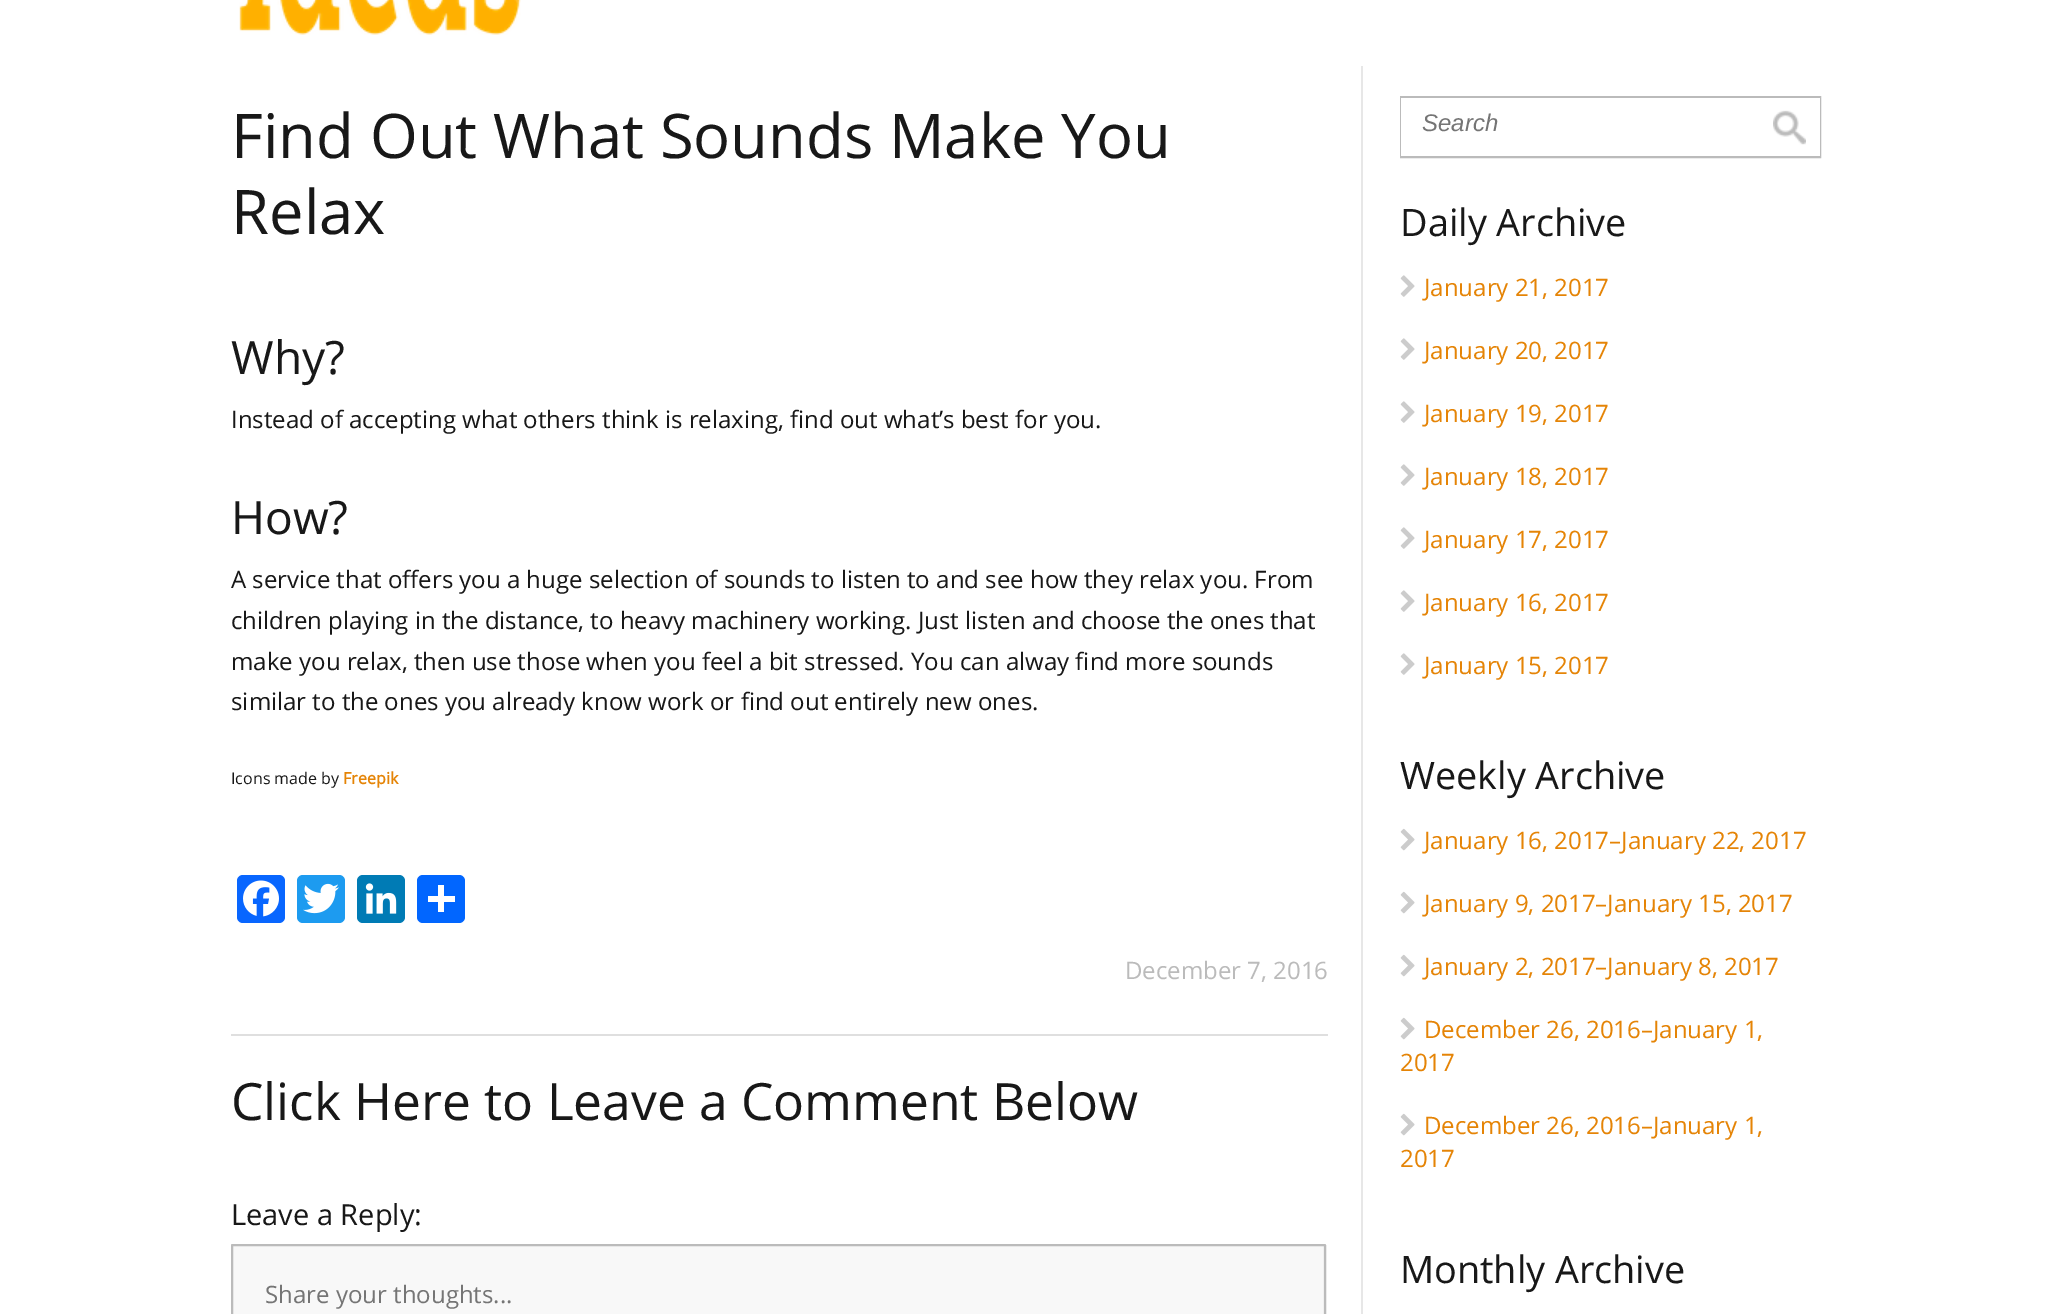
%!PS-Adobe-3.0
%%BoundingBox: 0 0 2051 1314
%%LanguageLevel: 3
%%Pages: 1
%%EndComments
%%BeginProlog
/rrect { 5 dict begin { /r /h /w /y /x } { exch def } forall
  x r add y moveto x w add y 2 copy h add r arct x w add y h add x 1 index r arct
  x y h add x y r arct x y 2 copy exch w add exch r arct closepath end } def
/drawimage { 5 dict begin { /h /w /y /x /name } { exch def } forall
  gsave x y translate w h scale
  w h 8 [w 0 0 h 0 0] name (r) file false 3 colorimage grestore end } def
%%EndProlog
%%BeginSetup
<< /PageSize [2051 1314] >> setpagedevice
%%EndSetup
%%Page: 1 1
0 1314 translate 1 -1 scale
4 setmiterlimit
1 setgray
0 0 2051 1314 rectfill
(images/1.raw) 239 0 282 35 drawimage
0.875 setgray
231 1034 1097 2 rectfill
0.031 0.4 1 setrgbcolor
237 875 48 48 6 rrect fill
(images/2.raw) 243 880 36 37 drawimage
0.114 0.608 0.941 setrgbcolor
297 875 48 48 6 rrect fill
(images/3.raw) 303 883 36 31 drawimage
0 0.482 0.71 setrgbcolor
357 875 48 48 6 rrect fill
(images/4.raw) 365 883 32 31 drawimage
0.004 0.4 1 setrgbcolor
417 875 48 48 6 rrect fill
1 setgray
438 885 6 27 rectfill
428 896 27 6 rectfill
0.973 setgray
231 1244 1095 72 1.5 rrect fill
0.941 setgray
1323 1245 1 69 rectfill
0.733 setgray
2 setlinewidth
232 1245 1093 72 0.5 rrect stroke
0.906 setgray
1361 66 2 1248 rectfill
0.733 setgray
1401 97 419 60 rectstroke
1 setgray
1401 98 419 58 rectfill
(images/5.raw) 1773 110 33 35 drawimage
(images/6.raw) 1400 275 15 22 drawimage
(images/6.raw) 1400 338 15 22 drawimage
(images/6.raw) 1400 401 15 22 drawimage
(images/6.raw) 1400 464 15 22 drawimage
(images/6.raw) 1400 527 15 22 drawimage
(images/6.raw) 1400 590 15 22 drawimage
(images/6.raw) 1400 653 15 22 drawimage
(images/7.raw) 1400 828 15 23 drawimage
(images/7.raw) 1400 891 15 23 drawimage
(images/7.raw) 1400 954 15 23 drawimage
(images/7.raw) 1400 1017 15 23 drawimage
(images/7.raw) 1400 1113 15 23 drawimage
/OpenSans-Regular [61.5 0 0 -61.5 0 0] selectfont
0.094 setgray
231 158 moveto (Find Out What Sounds Make You) show
231 234 moveto (Relax) show
/OpenSans-Regular [46 0 0 -46 0 0] selectfont
231 374 moveto (Why?) show
/OpenSans-Regular [24 0 0 -24 0 0] selectfont
231 428 moveto (Instead of accepting what others think is relaxing, find out what’s best for you.) show
/OpenSans-Regular [46 0 0 -46 0 0] selectfont
231 534 moveto (How?) show
/OpenSans-Regular [24 0 0 -24 0 0] selectfont
231 588 moveto (A service that offers you a huge selection of sounds to listen to and see how they relax you. From) show
231 629 moveto (children playing in the distance, to heavy machinery working. Just listen and choose the ones that) show
231 670 moveto (make you relax, then use those when you feel a bit stressed. You can alway find more sounds) show
231 710 moveto (similar to the ones you already know work or find out entirely new ones.) show
/OpenSans-Regular [16 0 0 -16 0 0] selectfont
231 784 moveto (Icons made by) show
/OpenSans-Bold [16 0 0 -16 0 0] selectfont
0.898 0.518 0.024 setrgbcolor
343 784 moveto (Freepik) show
/OpenSans-Regular [24 0 0 -24 0 0] selectfont
0.733 setgray
1125 979 moveto (December 7, 2016) show
/OpenSans-Regular [51.4 0 0 -51.4 0 0] selectfont
0.094 setgray
231 1120 moveto (Click Here to Leave a Comment Below) show
/OpenSans-Regular [29 0 0 -29 0 0] selectfont
231 1225 moveto (Leave a Reply:) show
/OpenSans-Regular [24 0 0 -24 0 0] selectfont
0.459 setgray
265 1303 moveto (Share your thoughts...) show
/LiberationSans-Italic [24 0 0 -24 0 0] selectfont
1422 131 moveto (Search) show
/OpenSans-Regular [37.75 0 0 -37.75 0 0] selectfont
0.094 setgray
1400 236 moveto (Daily Archive) show
/OpenSans-Regular [24 0 0 -24 0 0] selectfont
0.898 0.518 0.024 setrgbcolor
1424 296 moveto (January 21, 2017) show
1424 359 moveto (January 20, 2017) show
1424 422 moveto (January 19, 2017) show
1424 485 moveto (January 18, 2017) show
1424 548 moveto (January 17, 2017) show
1424 611 moveto (January 16, 2017) show
1424 674 moveto (January 15, 2017) show
/OpenSans-Regular [37.75 0 0 -37.75 0 0] selectfont
0.094 setgray
1400 789 moveto (Weekly Archive) show
/OpenSans-Regular [24 0 0 -24 0 0] selectfont
0.898 0.518 0.024 setrgbcolor
1424 849 moveto (January 16, 2017–January 22, 2017) show
1424 912 moveto (January 9, 2017–January 15, 2017) show
1424 975 moveto (January 2, 2017–January 8, 2017) show
1424 1038 moveto (December 26, 2016–January 1,) show
1400 1071 moveto (2017) show
1424 1134 moveto (December 26, 2016–January 1,) show
1400 1167 moveto (2017) show
/OpenSans-Regular [37.75 0 0 -37.75 0 0] selectfont
0.094 setgray
1400 1283 moveto (Monthly Archive) show
showpage
%%EOF
